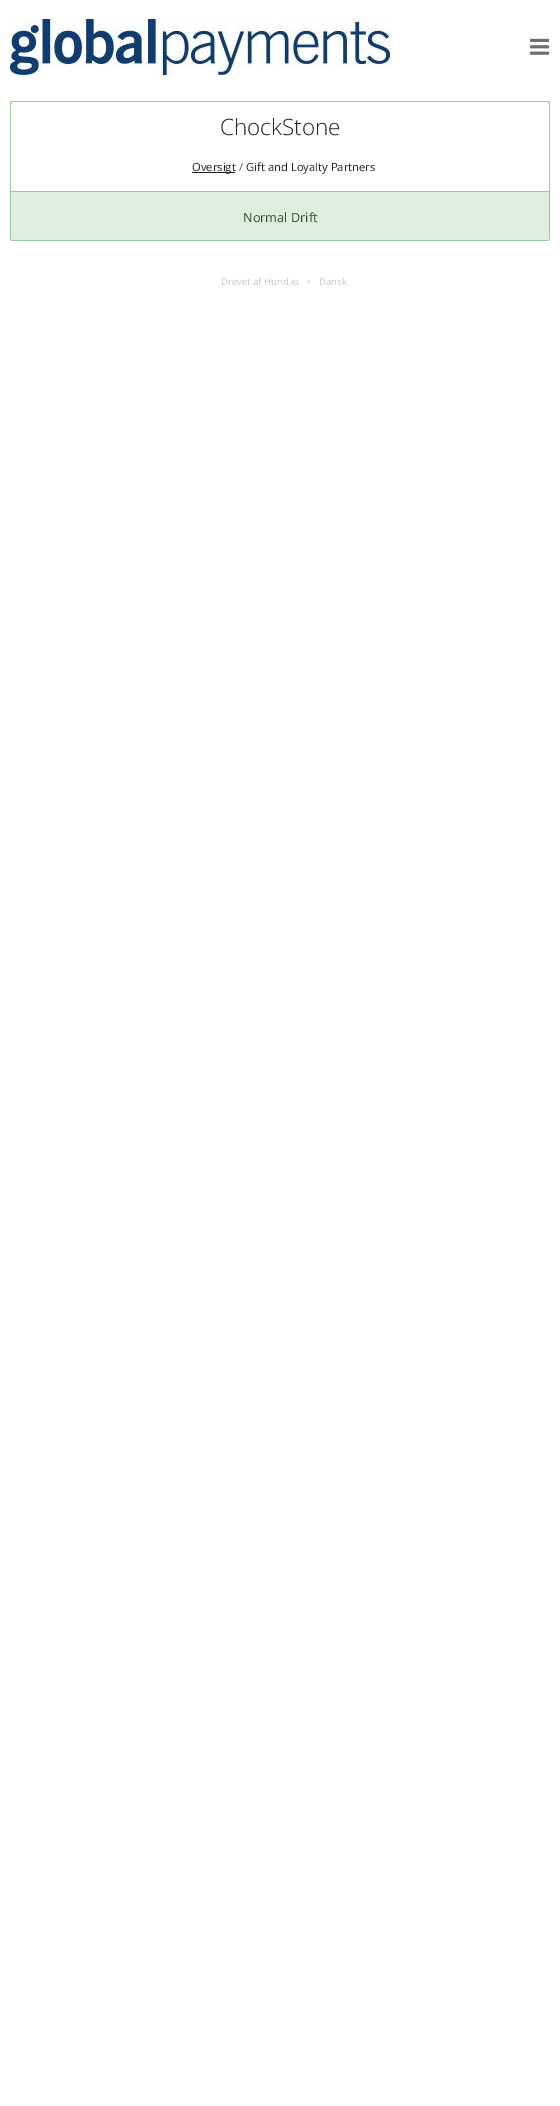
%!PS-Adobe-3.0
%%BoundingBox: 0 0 560 2106
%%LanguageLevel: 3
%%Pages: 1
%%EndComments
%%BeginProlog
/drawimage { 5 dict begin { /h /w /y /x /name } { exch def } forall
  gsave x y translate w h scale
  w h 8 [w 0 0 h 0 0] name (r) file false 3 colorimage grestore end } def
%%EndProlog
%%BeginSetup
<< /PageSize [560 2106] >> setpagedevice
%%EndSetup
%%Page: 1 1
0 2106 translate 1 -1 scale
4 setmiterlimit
1 setgray
0 0 560 2106 rectfill
(images/1.raw) 10 19 380 56 drawimage
(images/2.raw) 530 38 20 17 drawimage
0.6 0.8 0.612 setrgbcolor
newpath 13 101 moveto 547 101 lineto 549 101 550 102 550 104 curveto 550 238 lineto 550 240 549 241 547 241 curveto 13 241 lineto 11 241 10 240 10 238 curveto 10 104 lineto 10 102 11 101 13 101 curveto closepath 13 102 moveto 547 102 lineto 548 102 549 103 549 104 curveto 549 238 lineto 549 240 548 241 547 241 curveto 13 241 lineto 12 241 11 240 11 238 curveto 11 104 lineto 11 103 12 102 13 102 curveto closepath eofill
0.133 setgray
192 172 43 1 rectfill
0.867 0.933 0.871 setrgbcolor
11 192 538 48 rectfill
0.6 0.8 0.612 setrgbcolor
11 191 538 1 rectfill
11 240 538 1 rectfill
/OpenSans-Light [22.5 0 0 -22.5 0 0] selectfont
0.133 setgray
220 135 moveto (ChockStone) show
/OpenSans-Regular [11.25 0 0 -11.25 0 0] selectfont
192 171 moveto (Oversigt) show
0.337 setgray
239 171 moveto (/) show
0.133 setgray
246 171 moveto (Gift and Loyalty Partners) show
/OpenSans-Regular [12.75 0 0 -12.75 0 0] selectfont
0.169 0.337 0.176 setrgbcolor
243 222 moveto (Normal Drift) show
/OpenSans-Regular [9.5 0 0 -9.5 0 0] selectfont
0.769 setgray
221 285 moveto (Drevet af Hund.io) show
307 285 moveto (•) show
319 285 moveto (Dansk) show
showpage
%%EOF
